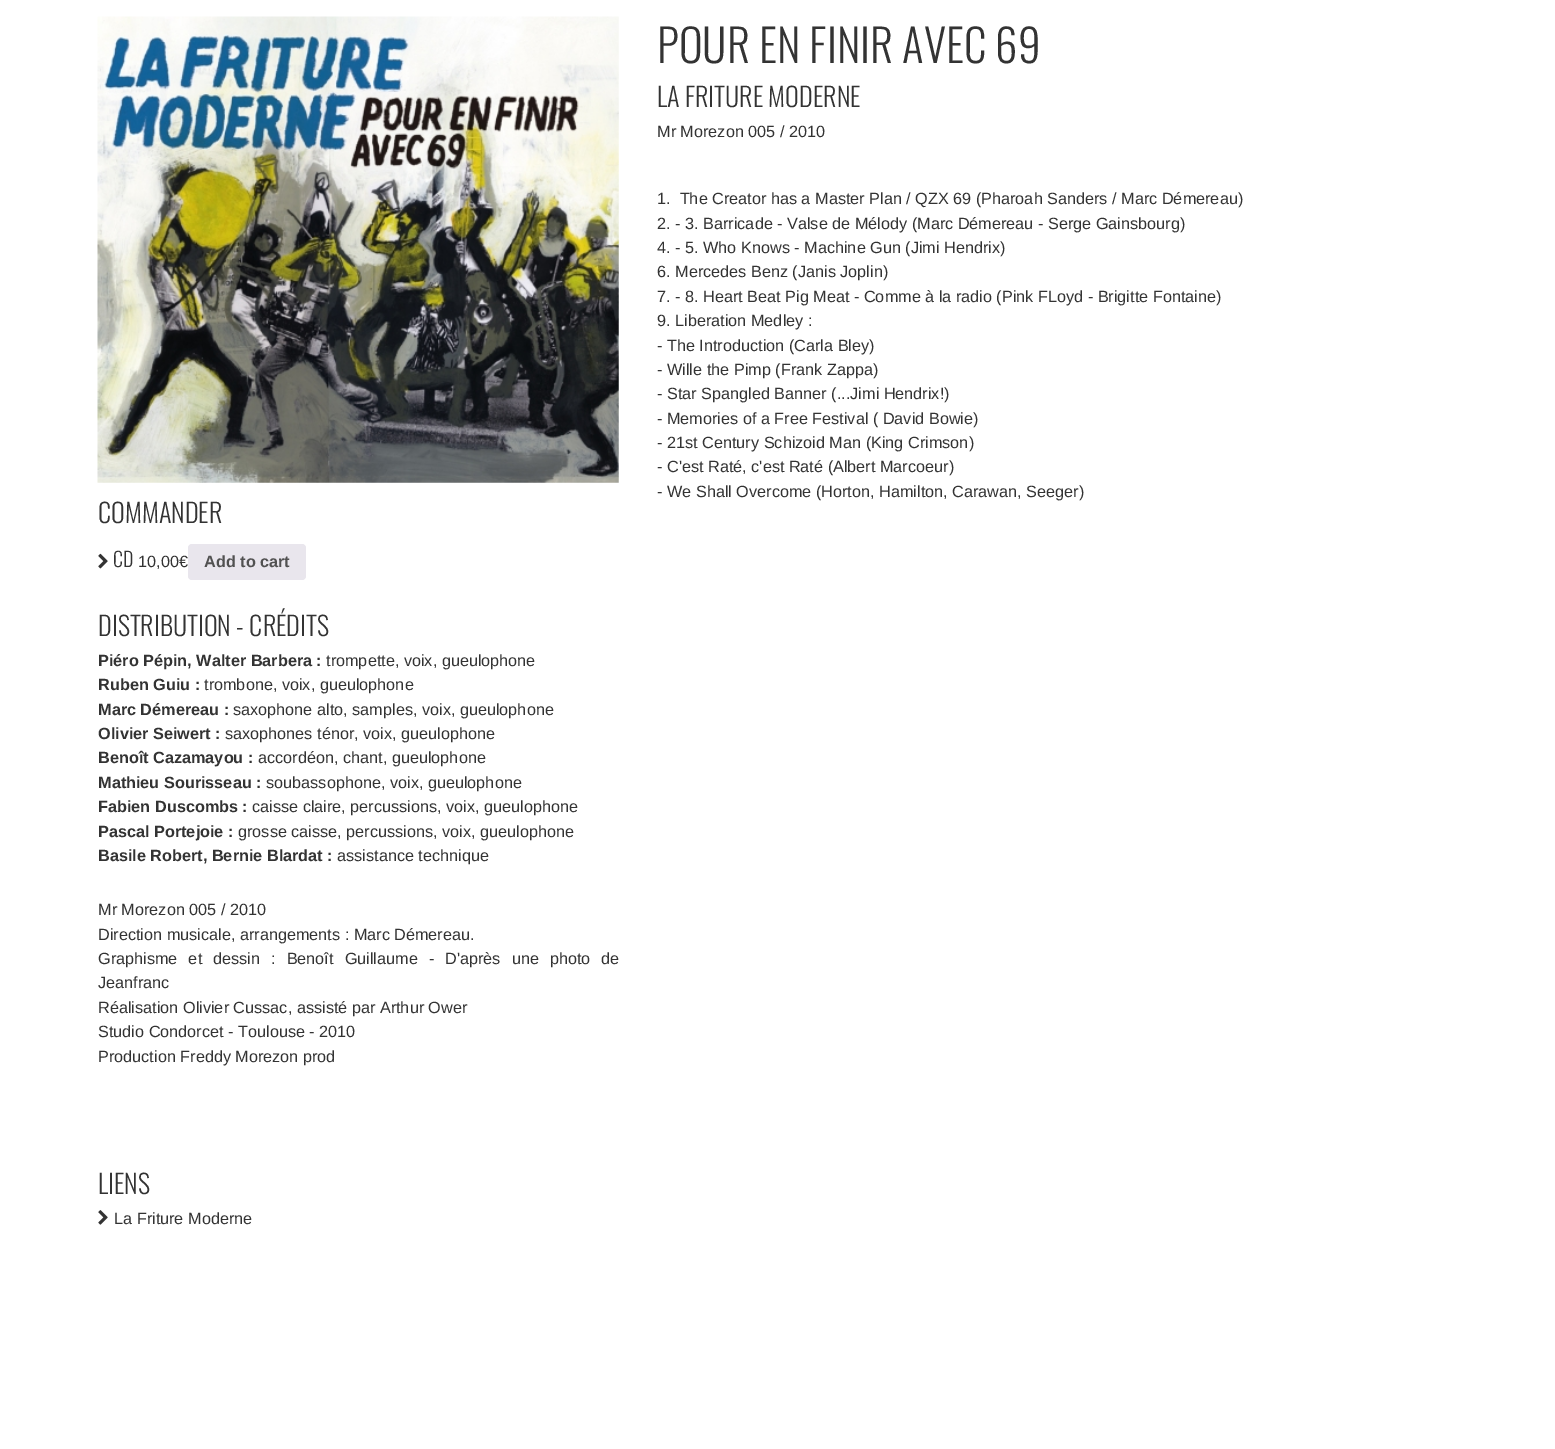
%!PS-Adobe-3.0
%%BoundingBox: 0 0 1555 1449
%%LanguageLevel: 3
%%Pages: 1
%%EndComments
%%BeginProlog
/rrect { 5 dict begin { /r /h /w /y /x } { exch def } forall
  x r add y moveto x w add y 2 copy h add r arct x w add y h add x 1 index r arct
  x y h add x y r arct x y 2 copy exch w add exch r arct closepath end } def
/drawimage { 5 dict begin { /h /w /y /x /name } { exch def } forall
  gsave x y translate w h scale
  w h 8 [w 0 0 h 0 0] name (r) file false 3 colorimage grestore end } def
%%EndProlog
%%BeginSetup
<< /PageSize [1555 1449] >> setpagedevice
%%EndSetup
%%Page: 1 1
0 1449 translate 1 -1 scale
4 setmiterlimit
1 setgray
0 0 1555 1449 rectfill
(images/1.raw) 97 16 522 467 drawimage
(images/2.raw) 98 553 10 16 drawimage
0.914 0.902 0.929 setrgbcolor
188 544 118 36 4 rrect fill
(images/3.raw) 98 1210 10 15 drawimage
/Oswald-Light [45 0 0 -45 0 0] selectfont
0.2 setgray
657 63 moveto (POUR EN FINIR AVEC 69) show
/Oswald-Light [26.25 0 0 -26.25 0 0] selectfont
657 107 moveto (LA FRITURE MODERNE) show
/LiberationSans-Regular [16.25 0 0 -16.25 0 0] selectfont
657 137 moveto (Mr Morezon 005 / 2010) show
657 204 moveto (1.  The Creator has a Master Plan / QZX 69 \(Pharoah Sanders / Marc Démereau\)) show
657 229 moveto (2. - 3. Barricade - Valse de Mélody \(Marc Démereau - Serge Gainsbourg\)) show
657 253 moveto (4. - 5. Who Knows - Machine Gun \(Jimi Hendrix\)) show
657 277 moveto (6. Mercedes Benz \(Janis Joplin\)) show
657 302 moveto (7. - 8. Heart Beat Pig Meat - Comme à la radio \(Pink FLoyd - Brigitte Fontaine\)) show
657 326 moveto (9. Liberation Medley :) show
657 351 moveto (- The Introduction \(Carla Bley\)) show
657 375 moveto (- Wille the Pimp \(Frank Zappa\)) show
657 399 moveto (- Star Spangled Banner \(...Jimi Hendrix!\)) show
657 424 moveto (- Memories of a Free Festival \( David Bowie\)) show
657 448 moveto (- 21st Century Schizoid Man \(King Crimson\)) show
657 472 moveto (- C'est Raté, c'est Raté \(Albert Marcoeur\)) show
657 497 moveto (- We Shall Overcome \(Horton, Hamilton, Carawan, Seeger\)) show
/Oswald-Light [26.25 0 0 -26.25 0 0] selectfont
98 523 moveto (COMMANDER) show
/Oswald-Light [20 0 0 -20 0 0] selectfont
113 567 moveto (CD) show
/LiberationSans-Regular [16.25 0 0 -16.25 0 0] selectfont
138 567 moveto (10,00€) show
/LiberationSans-Bold [16.25 0 0 -16.25 0 0] selectfont
0.318 setgray
204 567 moveto (Add to cart) show
/Oswald-Light [26.25 0 0 -26.25 0 0] selectfont
0.2 setgray
98 636 moveto (DISTRIBUTION - CRÉDITS) show
/LiberationSans-Bold [16.25 0 0 -16.25 0 0] selectfont
98 666 moveto (Piéro Pépin, Walter Barbera :) show
/LiberationSans-Regular [16.25 0 0 -16.25 0 0] selectfont
326 666 moveto (trompette, voix, gueulophone) show
/LiberationSans-Bold [16.25 0 0 -16.25 0 0] selectfont
98 690 moveto (Ruben Guiu :) show
/LiberationSans-Regular [16.25 0 0 -16.25 0 0] selectfont
204 690 moveto (trombone, voix, gueulophone) show
/LiberationSans-Bold [16.25 0 0 -16.25 0 0] selectfont
98 715 moveto (Marc Démereau :) show
/LiberationSans-Regular [16.25 0 0 -16.25 0 0] selectfont
233 715 moveto (saxophone alto, samples, voix, gueulophone) show
/LiberationSans-Bold [16.25 0 0 -16.25 0 0] selectfont
98 739 moveto (Olivier Seiwert :) show
/LiberationSans-Regular [16.25 0 0 -16.25 0 0] selectfont
225 739 moveto (saxophones ténor, voix, gueulophone) show
/LiberationSans-Bold [16.25 0 0 -16.25 0 0] selectfont
98 763 moveto (Benoît Cazamayou :) show
/LiberationSans-Regular [16.25 0 0 -16.25 0 0] selectfont
258 763 moveto (accordéon, chant, gueulophone) show
/LiberationSans-Bold [16.25 0 0 -16.25 0 0] selectfont
98 788 moveto (Mathieu Sourisseau :) show
/LiberationSans-Regular [16.25 0 0 -16.25 0 0] selectfont
266 788 moveto (soubassophone, voix, gueulophone) show
/LiberationSans-Bold [16.25 0 0 -16.25 0 0] selectfont
98 812 moveto (Fabien Duscombs :) show
/LiberationSans-Regular [16.25 0 0 -16.25 0 0] selectfont
252 812 moveto (caisse claire, percussions, voix, gueulophone) show
/LiberationSans-Bold [16.25 0 0 -16.25 0 0] selectfont
98 837 moveto (Pascal Portejoie :) show
/LiberationSans-Regular [16.25 0 0 -16.25 0 0] selectfont
238 837 moveto (grosse caisse, percussions, voix, gueulophone) show
/LiberationSans-Bold [16.25 0 0 -16.25 0 0] selectfont
98 861 moveto (Basile Robert, Bernie Blardat :) show
/LiberationSans-Regular [16.25 0 0 -16.25 0 0] selectfont
337 861 moveto (assistance technique) show
98 915 moveto (Mr Morezon 005 / 2010) show
98 940 moveto (Direction musicale, arrangements : Marc Démereau.) show
98 964 moveto 6.5 0 32 (Graphisme et dessin : Benoît Guillaume - D'après une photo de) widthshow
98 988 moveto (Jeanfranc) show
98 1013 moveto (Réalisation Olivier Cussac, assisté par Arthur Ower) show
98 1037 moveto (Studio Condorcet - Toulouse - 2010) show
98 1062 moveto (Production Freddy Morezon prod) show
/Oswald-Light [26.25 0 0 -26.25 0 0] selectfont
98 1194 moveto (LIENS) show
/LiberationSans-Regular [16.25 0 0 -16.25 0 0] selectfont
114 1224 moveto (La Friture Moderne) show
showpage
%%EOF
